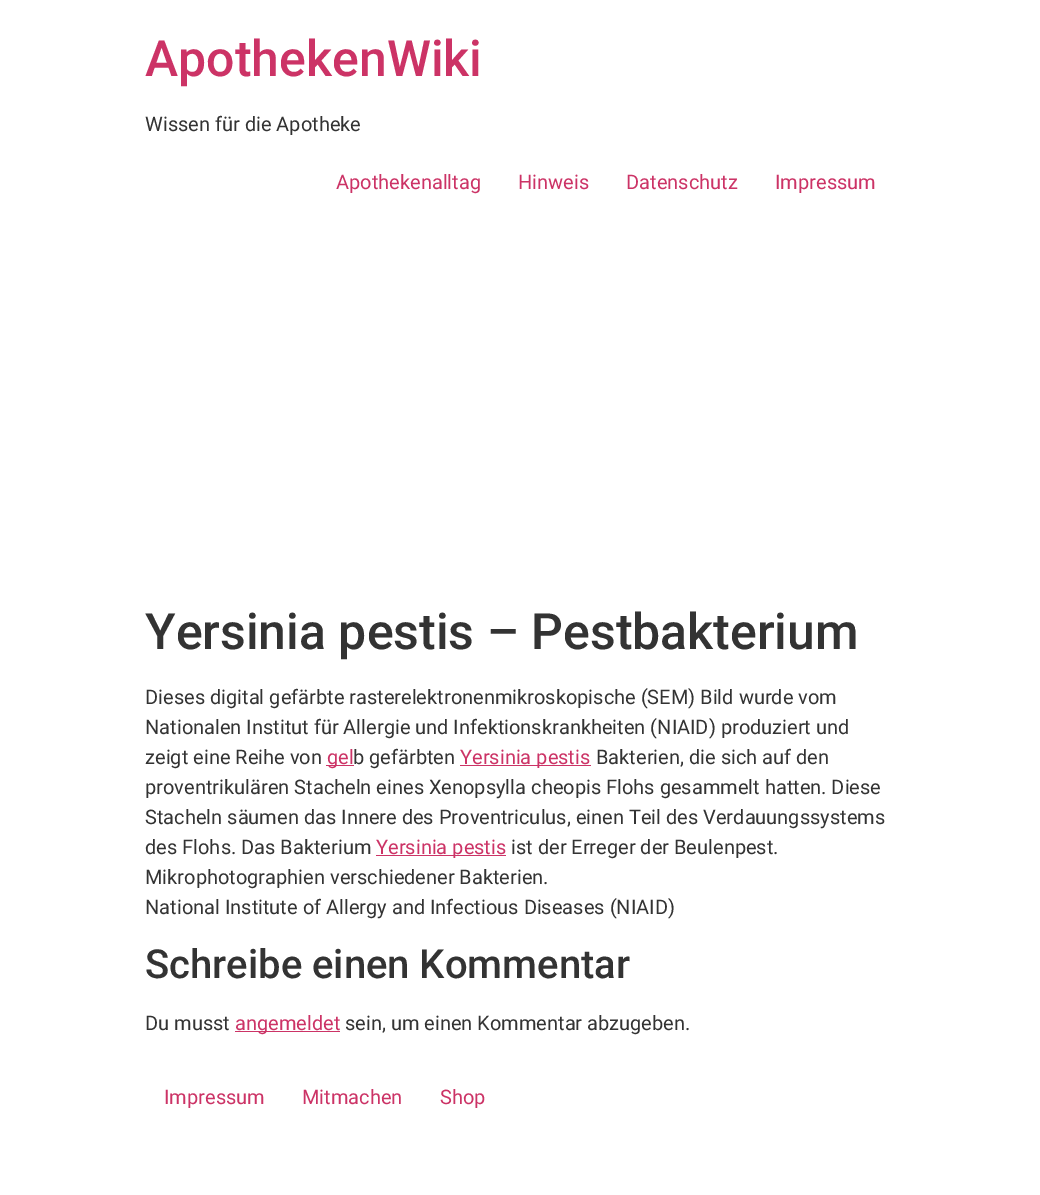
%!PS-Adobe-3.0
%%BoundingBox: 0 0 1040 1195
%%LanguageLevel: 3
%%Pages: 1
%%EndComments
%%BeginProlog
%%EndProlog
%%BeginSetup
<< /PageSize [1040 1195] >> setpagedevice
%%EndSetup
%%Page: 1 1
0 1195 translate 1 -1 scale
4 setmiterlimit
1 setgray
0 0 1040 1195 rectfill
0.8 0.2 0.4 setrgbcolor
326 765 28 1 rectfill
460 765 131 1 rectfill
376 855 130 1 rectfill
235 1031 105 1 rectfill
/Roboto-Medium [50 0 0 -50 0 0] selectfont
145 76 moveto (ApothekenWiki) show
/Roboto-Regular [20 0 0 -20 0 0] selectfont
0.2 setgray
145 131 moveto (Wissen für die Apotheke) show
0.8 0.2 0.4 setrgbcolor
336 189 moveto (Apothekenalltag) show
518 189 moveto (Hinweis) show
626 189 moveto (Datenschutz) show
775 189 moveto (Impressum) show
/Roboto-Medium [50 0 0 -50 0 0] selectfont
0.2 setgray
145 649 moveto (Yersinia pestis – Pestbakterium) show
/Roboto-Regular [20 0 0 -20 0 0] selectfont
145 704 moveto (Dieses digital gefärbte rasterelektronenmikroskopische \(SEM\) Bild wurde vom) show
145 734 moveto (Nationalen Institut für Allergie und Infektionskrankheiten \(NIAID\) produziert und) show
145 764 moveto (zeigt eine Reihe von) show
0.8 0.2 0.4 setrgbcolor
327 764 moveto (gel) show
0.2 setgray
353 764 moveto (b gefärbten) show
0.8 0.2 0.4 setrgbcolor
460 764 moveto (Yersinia pestis) show
0.2 setgray
596 764 moveto (Bakterien, die sich auf den) show
145 794 moveto (proventrikulären Stacheln eines Xenopsylla cheopis Flohs gesammelt hatten. Diese) show
145 824 moveto (Stacheln säumen das Innere des Proventriculus, einen Teil des Verdauungssystems) show
145 854 moveto (des Flohs. Das Bakterium) show
0.8 0.2 0.4 setrgbcolor
376 854 moveto (Yersinia pestis) show
0.2 setgray
511 854 moveto (ist der Erreger der Beulenpest.) show
145 884 moveto (Mikrophotographien verschiedener Bakterien.) show
145 914 moveto (National Institute of Allergy and Infectious Diseases \(NIAID\)) show
/Roboto-Medium [40 0 0 -40 0 0] selectfont
145 978 moveto (Schreibe einen Kommentar) show
/Roboto-Regular [20 0 0 -20 0 0] selectfont
145 1030 moveto (Du musst) show
0.8 0.2 0.4 setrgbcolor
235 1030 moveto (angemeldet) show
0.2 setgray
345 1030 moveto (sein, um einen Kommentar abzugeben.) show
0.8 0.2 0.4 setrgbcolor
164 1104 moveto (Impressum) show
302 1104 moveto (Mitmachen) show
440 1104 moveto (Shop) show
showpage
%%EOF
